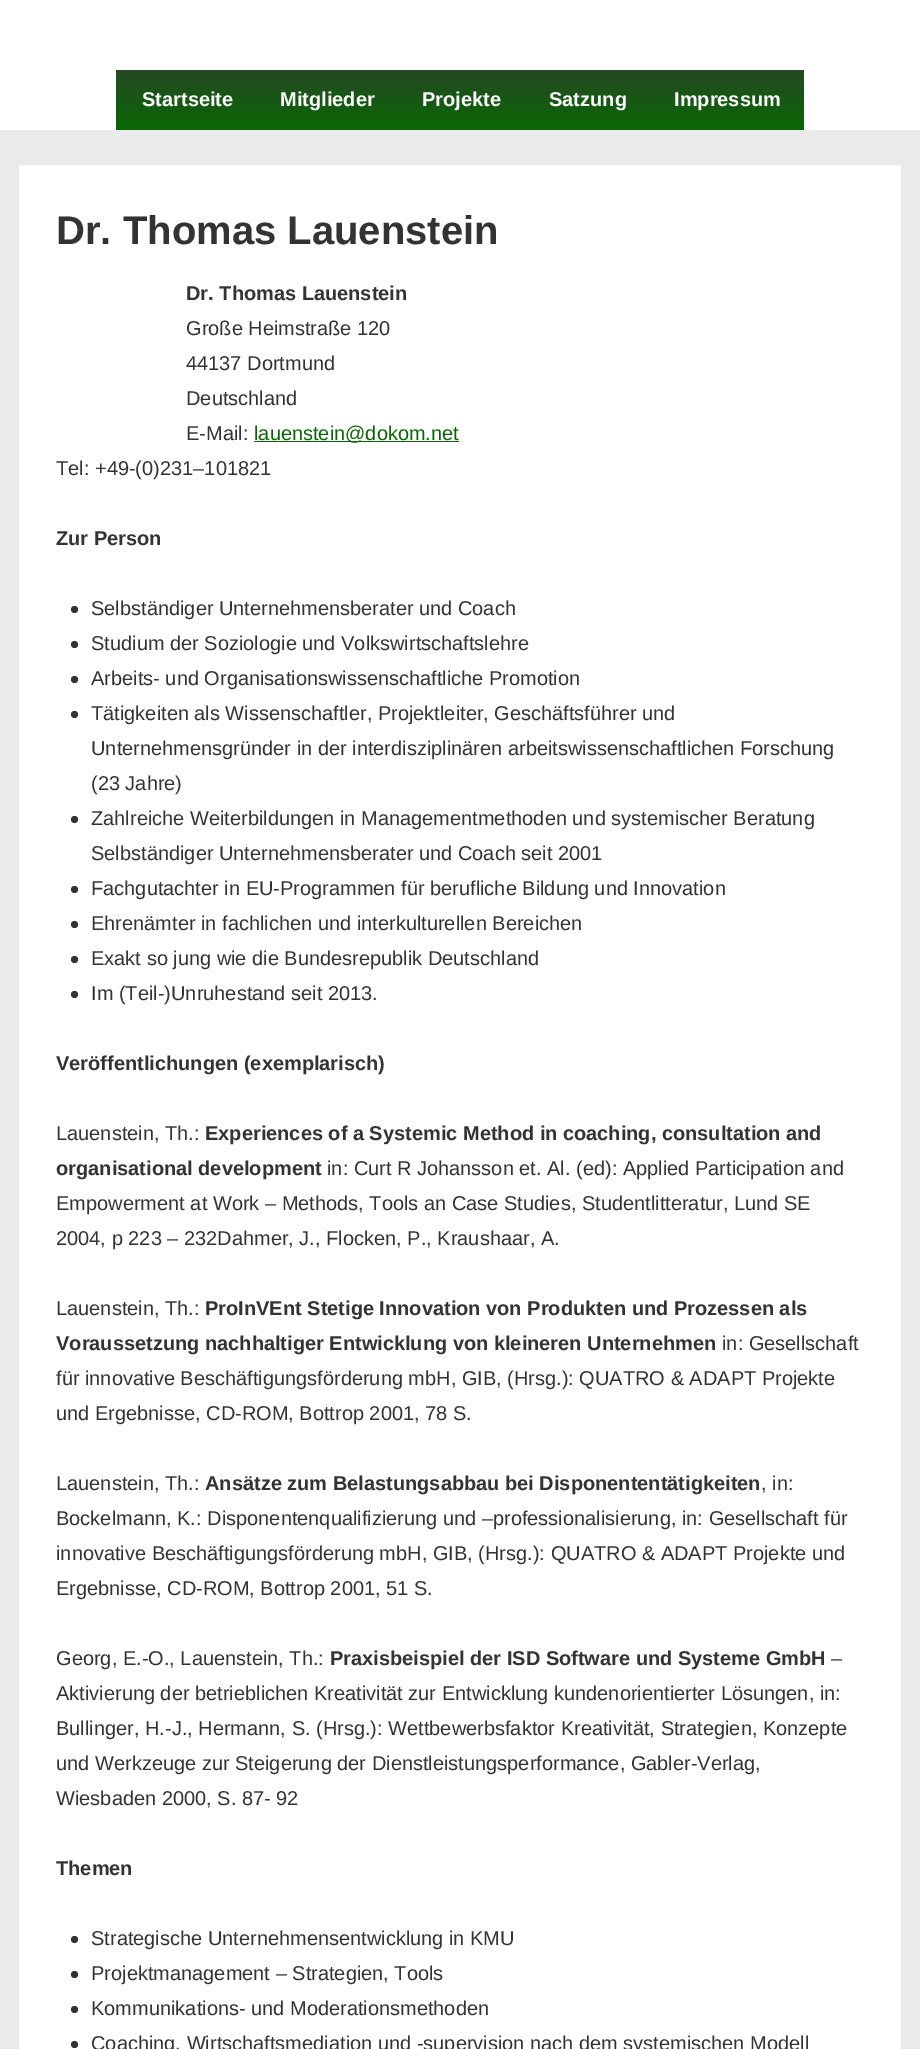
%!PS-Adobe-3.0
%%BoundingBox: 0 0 920 2049
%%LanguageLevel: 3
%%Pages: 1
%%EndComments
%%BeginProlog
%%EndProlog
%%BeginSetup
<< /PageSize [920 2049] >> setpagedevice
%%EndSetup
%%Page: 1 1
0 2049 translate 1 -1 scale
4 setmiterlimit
0.918 setgray
0 0 920 2049 rectfill
1 setgray
0 0 920 130 rectfill
gsave newpath 116 70 moveto 651 70 lineto 651 130 lineto 116 130 lineto closepath clip newpath
<< /ShadingType 2 /ColorSpace /DeviceRGB /Coords [460 70 460 130] /Extend [true true] /Function << /FunctionType 2 /Domain [0 1] /C0 [0.145 0.286 0.137] /C1 [0.031 0.404 0.016] /N 1 >> >> shfill grestore
gsave newpath 651 70 moveto 804 70 lineto 804 130 lineto 651 130 lineto closepath clip newpath
<< /ShadingType 2 /ColorSpace /DeviceRGB /Coords [728 70 728 130] /Extend [true true] /Function << /FunctionType 2 /Domain [0 1] /C0 [0.145 0.286 0.137] /C1 [0.031 0.404 0.016] /N 1 >> >> shfill grestore
19 165 882 1884 rectfill
0.031 0.404 0.016 setrgbcolor
254 441 205 1 rectfill
0.2 setgray
newpath 74.5 609.5 3.5 0 360 arc closepath fill
newpath 74.5 644.5 3.5 0 360 arc closepath fill
newpath 74.5 679.5 3.5 0 360 arc closepath fill
newpath 74.5 714.5 3.5 0 360 arc closepath fill
newpath 74.5 819.5 3.5 0 360 arc closepath fill
newpath 74.5 889.5 3.5 0 360 arc closepath fill
newpath 74.5 924.5 3.5 0 360 arc closepath fill
newpath 74.5 959.5 3.5 0 360 arc closepath fill
newpath 74.5 994.5 3.5 0 360 arc closepath fill
newpath 74.5 1939.5 3.5 0 360 arc closepath fill
newpath 74.5 1974.5 3.5 0 360 arc closepath fill
newpath 74.5 2009.5 3.5 0 360 arc closepath fill
newpath 74.5 2044.5 3.5 0 360 arc closepath fill
/LiberationSans-Bold [20 0 0 -20 0 0] selectfont
1 setgray
142 106 moveto (Startseite) show
280 106 moveto (Mitglieder) show
422 106 moveto (Projekte) show
549 106 moveto (Satzung) show
674 106 moveto (Impressum) show
/LiberationSans-Bold [40 0 0 -40 0 0] selectfont
0.2 setgray
56 244 moveto (Dr. Thomas Lauenstein) show
/LiberationSans-Bold [20 0 0 -20 0 0] selectfont
186 300 moveto (Dr. Thomas Lauenstein) show
/LiberationSans-Regular [20 0 0 -20 0 0] selectfont
186 335 moveto (Große Heimstraße 120) show
186 370 moveto (44137 Dortmund) show
186 405 moveto (Deutschland) show
186 440 moveto (E-Mail:) show
0.031 0.404 0.016 setrgbcolor
254 440 moveto (lauenstein@dokom.net) show
0.2 setgray
56 475 moveto (Tel: +49-\(0\)231–101821) show
/LiberationSans-Bold [20 0 0 -20 0 0] selectfont
56 545 moveto (Zur Person) show
/LiberationSans-Regular [20 0 0 -20 0 0] selectfont
91 615 moveto (Selbständiger Unternehmensberater und Coach) show
91 650 moveto (Studium der Soziologie und Volkswirtschaftslehre) show
91 685 moveto (Arbeits- und Organisationswissenschaftliche Promotion) show
91 720 moveto (Tätigkeiten als Wissenschaftler, Projektleiter, Geschäftsführer und) show
91 755 moveto (Unternehmensgründer in der interdisziplinären arbeitswissenschaftlichen Forschung) show
91 790 moveto (\(23 Jahre\)) show
91 825 moveto (Zahlreiche Weiterbildungen in Managementmethoden und systemischer Beratung) show
91 860 moveto (Selbständiger Unternehmensberater und Coach seit 2001) show
91 895 moveto (Fachgutachter in EU-Programmen für berufliche Bildung und Innovation) show
91 930 moveto (Ehrenämter in fachlichen und interkulturellen Bereichen) show
91 965 moveto (Exakt so jung wie die Bundesrepublik Deutschland) show
91 1000 moveto (Im \(Teil-\)Unruhestand seit 2013.) show
/LiberationSans-Bold [20 0 0 -20 0 0] selectfont
56 1070 moveto (Veröffentlichungen \(exemplarisch\)) show
/LiberationSans-Regular [20 0 0 -20 0 0] selectfont
56 1140 moveto (Lauenstein, Th.:) show
/LiberationSans-Bold [20 0 0 -20 0 0] selectfont
205 1140 moveto (Experiences of a Systemic Method in coaching, consultation and) show
56 1175 moveto (organisational development) show
/LiberationSans-Regular [20 0 0 -20 0 0] selectfont
327 1175 moveto (in: Curt R Johansson et. Al. \(ed\): Applied Participation and) show
56 1210 moveto (Empowerment at Work – Methods, Tools an Case Studies, Studentlitteratur, Lund SE) show
56 1245 moveto (2004, p 223 – 232Dahmer, J., Flocken, P., Kraushaar, A.) show
56 1315 moveto (Lauenstein, Th.:) show
/LiberationSans-Bold [20 0 0 -20 0 0] selectfont
205 1315 moveto (ProInVEnt Stetige Innovation von Produkten und Prozessen als) show
56 1350 moveto (Voraussetzung nachhaltiger Entwicklung von kleineren Unternehmen) show
/LiberationSans-Regular [20 0 0 -20 0 0] selectfont
722 1350 moveto (in: Gesellschaft) show
56 1385 moveto (für innovative Beschäftigungsförderung mbH, GIB, \(Hrsg.\): QUATRO & ADAPT Projekte) show
56 1420 moveto (und Ergebnisse, CD-ROM, Bottrop 2001, 78 S.) show
56 1490 moveto (Lauenstein, Th.:) show
/LiberationSans-Bold [20 0 0 -20 0 0] selectfont
205 1490 moveto (Ansätze zum Belastungsabbau bei Disponententätigkeiten) show
/LiberationSans-Regular [20 0 0 -20 0 0] selectfont
761 1490 moveto (, in:) show
56 1525 moveto (Bockelmann, K.: Disponentenqualifizierung und –professionalisierung, in: Gesellschaft für) show
56 1560 moveto (innovative Beschäftigungsförderung mbH, GIB, \(Hrsg.\): QUATRO & ADAPT Projekte und) show
56 1595 moveto (Ergebnisse, CD-ROM, Bottrop 2001, 51 S.) show
56 1665 moveto (Georg, E.-O., Lauenstein, Th.:) show
/LiberationSans-Bold [20 0 0 -20 0 0] selectfont
330 1665 moveto (Praxisbeispiel der ISD Software und Systeme GmbH) show
/LiberationSans-Regular [20 0 0 -20 0 0] selectfont
831 1665 moveto (–) show
56 1700 moveto (Aktivierung der betrieblichen Kreativität zur Entwicklung kundenorientierter Lösungen, in:) show
56 1735 moveto (Bullinger, H.-J., Hermann, S. \(Hrsg.\): Wettbewerbsfaktor Kreativität, Strategien, Konzepte) show
56 1770 moveto (und Werkzeuge zur Steigerung der Dienstleistungsperformance, Gabler-Verlag,) show
56 1805 moveto (Wiesbaden 2000, S. 87- 92) show
/LiberationSans-Bold [20 0 0 -20 0 0] selectfont
56 1875 moveto (Themen) show
/LiberationSans-Regular [20 0 0 -20 0 0] selectfont
91 1945 moveto (Strategische Unternehmensentwicklung in KMU) show
91 1980 moveto (Projektmanagement – Strategien, Tools) show
91 2015 moveto (Kommunikations- und Moderationsmethoden) show
91 2050 moveto (Coaching, Wirtschaftsmediation und -supervision nach dem systemischen Modell) show
showpage
%%EOF
